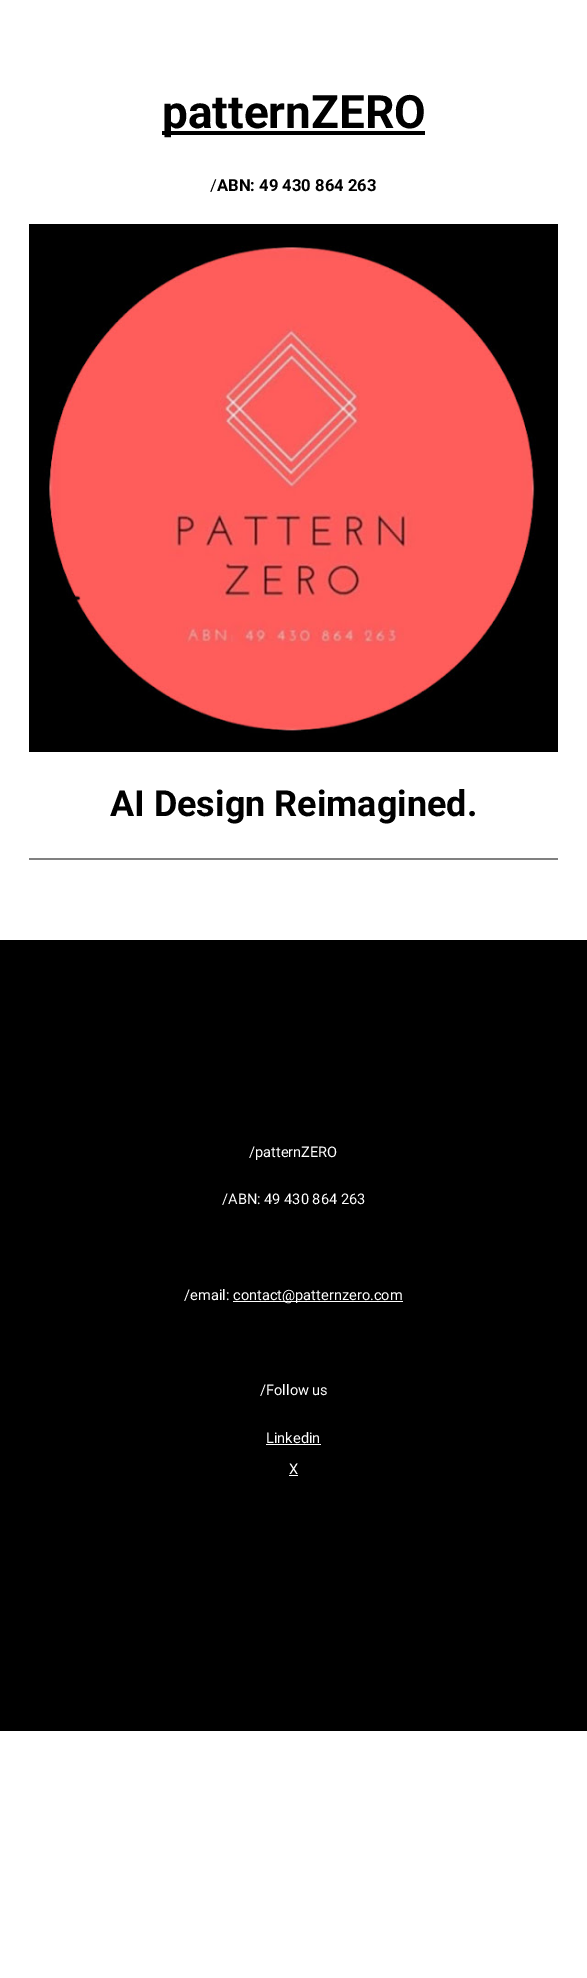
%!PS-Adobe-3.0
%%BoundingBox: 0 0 587 1978
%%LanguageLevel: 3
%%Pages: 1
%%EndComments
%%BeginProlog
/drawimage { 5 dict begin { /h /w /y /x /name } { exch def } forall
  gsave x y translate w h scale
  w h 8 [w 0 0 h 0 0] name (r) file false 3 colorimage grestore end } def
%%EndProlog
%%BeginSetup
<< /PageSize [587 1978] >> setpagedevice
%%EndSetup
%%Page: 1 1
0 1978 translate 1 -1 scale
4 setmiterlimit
1 setgray
0 0 587 1978 rectfill
0 setgray
162 131 263 4 rectfill
(images/1.raw) 29 224 529 528 drawimage
0.502 setgray
29 858 529 2 rectfill
0 setgray
0 940 587 791 rectfill
1 setgray
233 1301 170 1 rectfill
266 1444 55 1 rectfill
289 1475 9 1 rectfill
/Roboto-Bold [46 0 0 -46 0 0] selectfont
0 setgray
162 128 moveto (patternZERO) show
/Roboto-Regular [16.6 0 0 -16.6 0 0] selectfont
210 191 moveto (/) show
/Roboto-Bold [16.6 0 0 -16.6 0 0] selectfont
217 191 moveto (ABN: 49 430 864 263) show
/Roboto-Bold [36 0 0 -36 0 0] selectfont
110 816 moveto (AI Design Reimagined.) show
/Roboto-Regular [14.6 0 0 -14.6 0 0] selectfont
1 setgray
249 1157 moveto (/patternZERO) show
222 1204 moveto (/ABN: 49 430 864 263) show
184 1300 moveto (/email:) show
233 1300 moveto (contact@patternzero.com) show
260 1395 moveto (/Follow us) show
266 1443 moveto (Linkedin) show
289 1474 moveto (X) show
showpage
%%EOF
